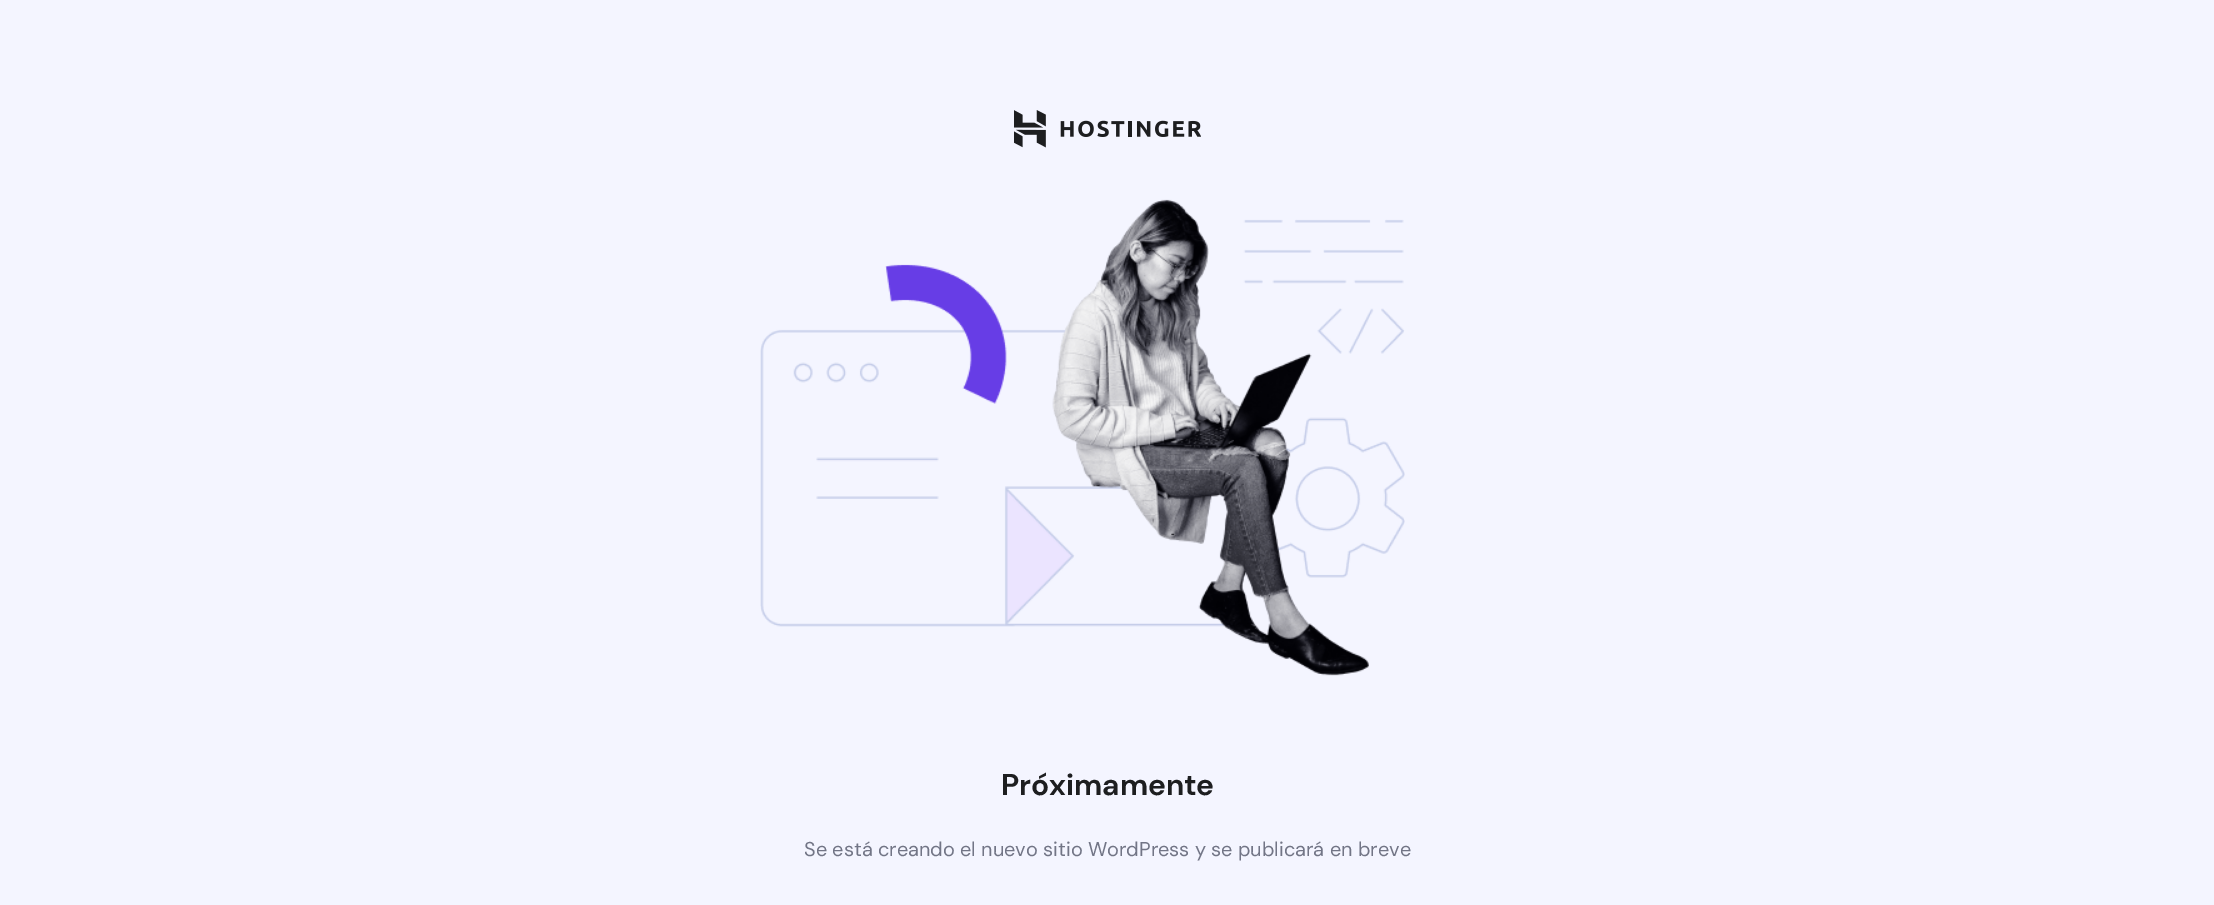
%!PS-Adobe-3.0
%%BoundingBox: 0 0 2214 905
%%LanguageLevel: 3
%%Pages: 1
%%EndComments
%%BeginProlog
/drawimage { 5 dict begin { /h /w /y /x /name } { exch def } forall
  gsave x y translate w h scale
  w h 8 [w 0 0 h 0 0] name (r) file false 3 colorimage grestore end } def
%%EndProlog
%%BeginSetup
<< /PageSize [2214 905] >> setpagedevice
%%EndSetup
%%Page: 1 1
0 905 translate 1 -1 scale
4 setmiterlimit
0.957 0.961 1 setrgbcolor
0 0 2214 905 rectfill
(images/1.raw) 1014 110 187 38 drawimage
(images/2.raw) 760 199 645 477 drawimage
/DMSans-Bold [30 0 0 -30 0 0] selectfont
0.114 0.118 0.125 setrgbcolor
1001 795 moveto (Próximamente) show
/DMSans-Regular [20 0 0 -20 0 0] selectfont
0.447 0.459 0.525 setrgbcolor
804 856 moveto (Se está creando el nuevo sitio WordPress y se publicará en breve) show
showpage
%%EOF
